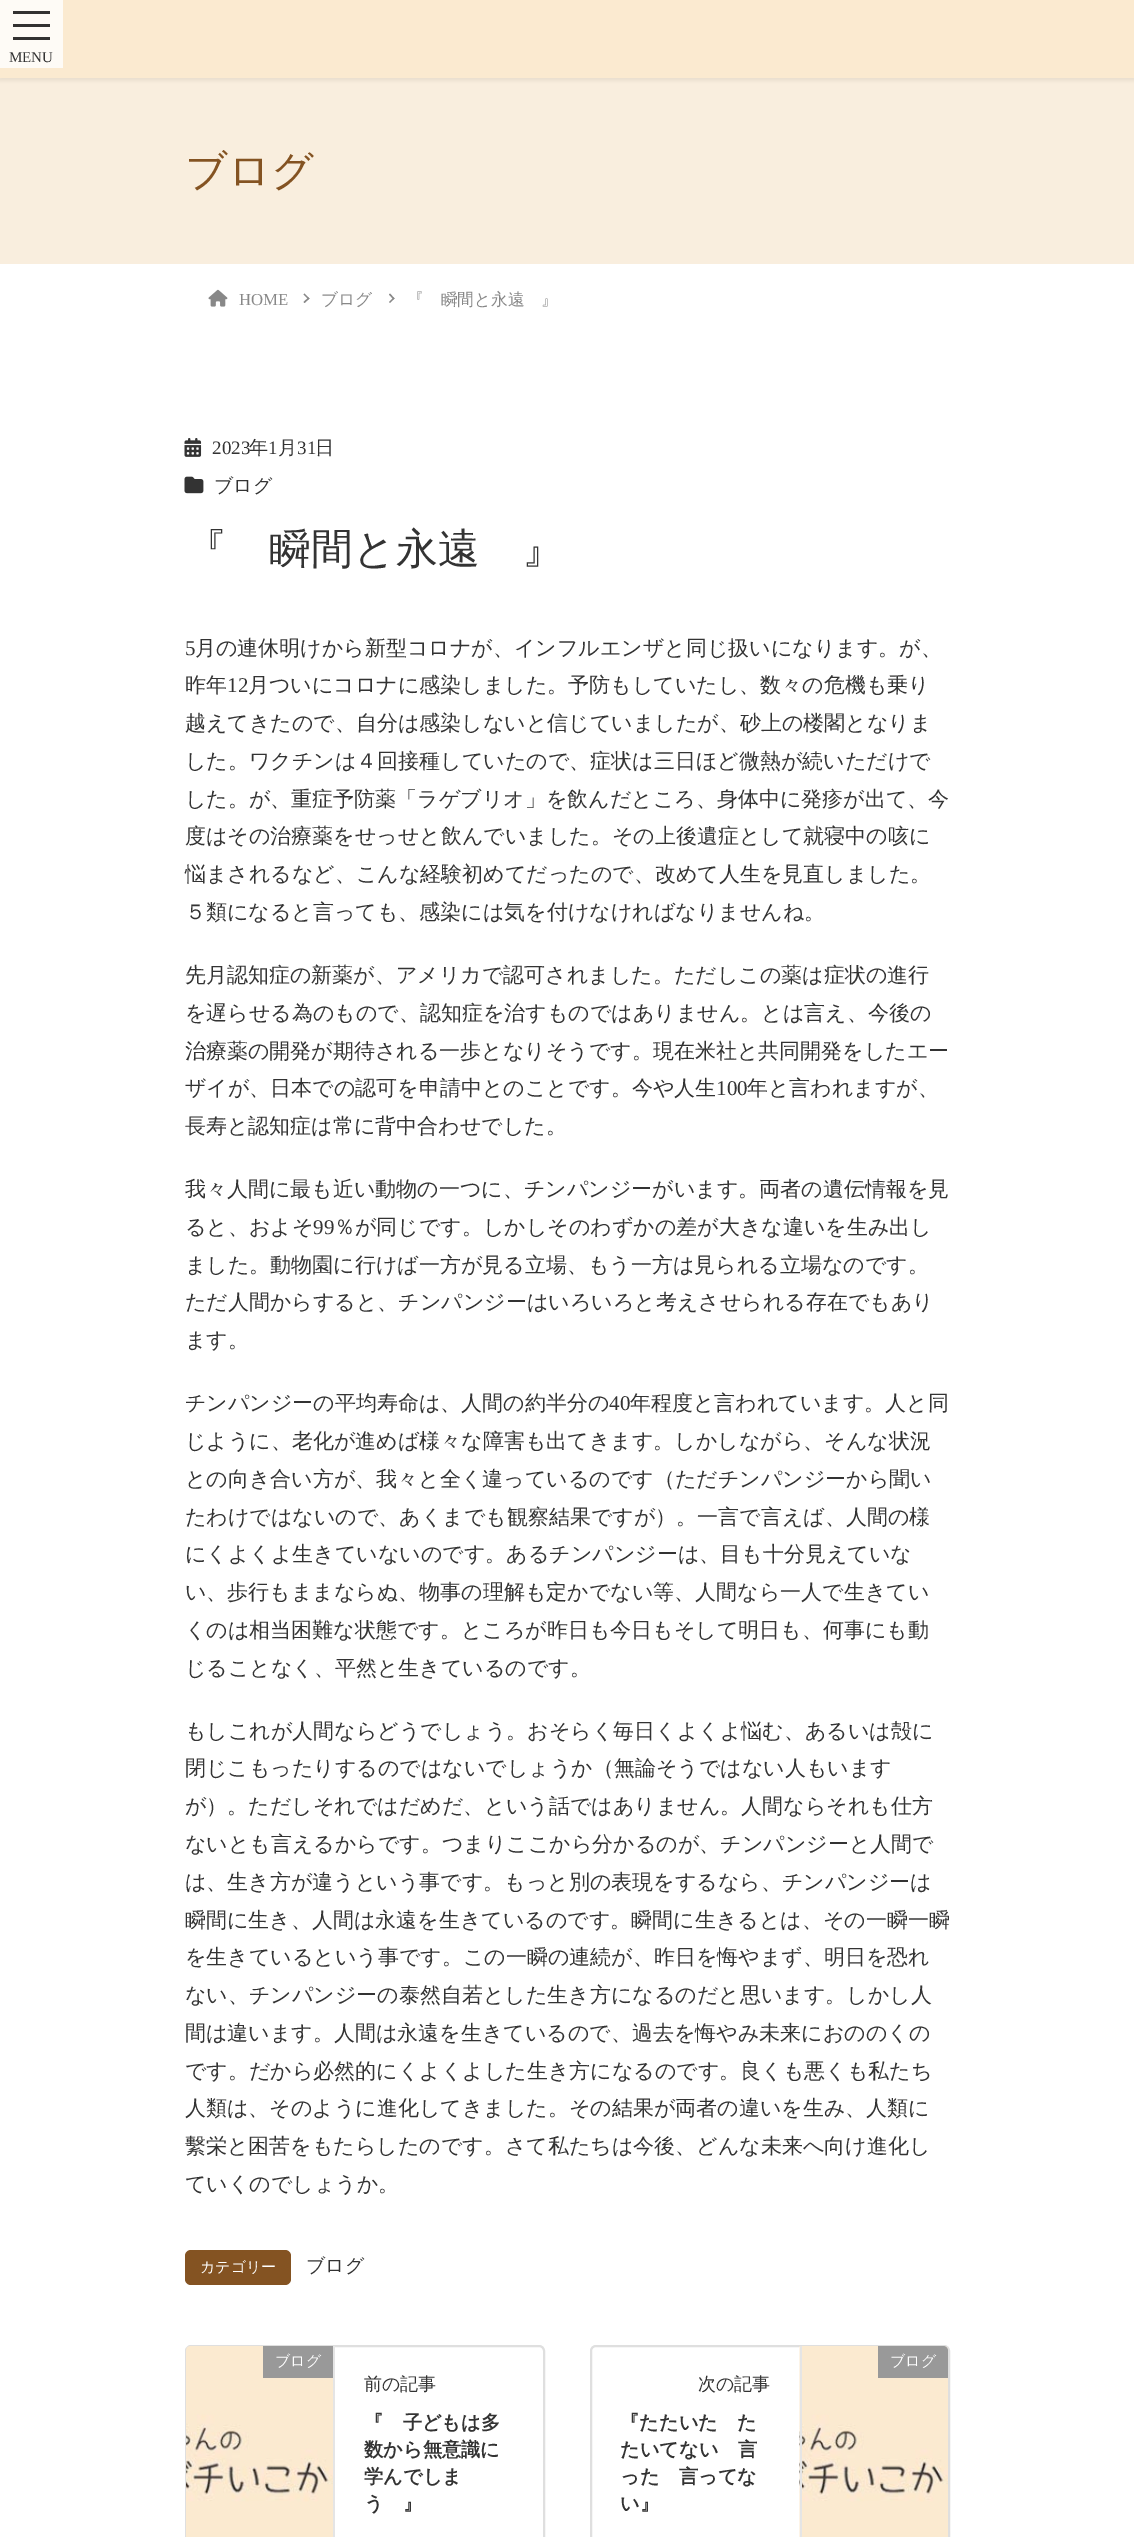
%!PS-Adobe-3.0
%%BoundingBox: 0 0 1134 2537
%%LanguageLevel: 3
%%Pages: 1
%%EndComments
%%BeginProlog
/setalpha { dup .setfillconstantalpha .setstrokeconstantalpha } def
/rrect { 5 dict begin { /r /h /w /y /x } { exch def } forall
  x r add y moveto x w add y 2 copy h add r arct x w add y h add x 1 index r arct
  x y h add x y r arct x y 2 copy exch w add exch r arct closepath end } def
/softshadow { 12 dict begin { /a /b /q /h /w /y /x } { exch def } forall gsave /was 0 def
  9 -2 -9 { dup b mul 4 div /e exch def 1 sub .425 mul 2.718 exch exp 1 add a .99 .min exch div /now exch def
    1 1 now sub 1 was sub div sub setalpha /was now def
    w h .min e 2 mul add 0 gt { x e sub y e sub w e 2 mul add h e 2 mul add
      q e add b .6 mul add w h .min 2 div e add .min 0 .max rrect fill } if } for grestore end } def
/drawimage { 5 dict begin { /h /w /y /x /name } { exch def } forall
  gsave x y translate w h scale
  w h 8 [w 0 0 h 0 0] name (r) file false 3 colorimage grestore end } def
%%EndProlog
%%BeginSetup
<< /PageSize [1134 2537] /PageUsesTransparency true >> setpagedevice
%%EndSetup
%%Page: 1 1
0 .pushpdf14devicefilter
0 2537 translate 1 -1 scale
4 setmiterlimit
1 setgray
0 0 1134 2537 rectfill
0.976 0.933 0.871 setrgbcolor
0 78 1134 186 rectfill
0 setgray
-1 0 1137 81 0 1.5 0.05 softshadow
0.984 0.918 0.816 setrgbcolor
0 0 1134 78 rectfill
0.996 0.984 0.965 setrgbcolor
0 0 63 68 rectfill
0.2 0.196 0.192 setrgbcolor
13 11 37 3 rectfill
13 24 37 3 rectfill
13 37 37 3 rectfill
(images/1.raw) 208 289 20 18 drawimage
0.533 setgray
newpath 304.5 293.5 moveto 309.5 298.5 lineto 308.5 299.5 lineto 303.5 294.5 lineto closepath fill
newpath 308.5 297.5 moveto 309.5 298.5 lineto 304.5 303 lineto 303.5 302 lineto closepath fill
newpath 390 293.5 moveto 394.5 298.5 lineto 393.5 299.5 lineto 389 294.5 lineto closepath fill
newpath 393.5 297.5 moveto 394.5 298.5 lineto 390 303 lineto 389 302 lineto closepath fill
(images/2.raw) 184 438 18 19 drawimage
(images/3.raw) 184 476 20 18 drawimage
0.518 0.325 0.133 setrgbcolor
185 2250 106 35 6 rrect fill
0.875 setgray
2 setlinewidth
186 2346 358 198 5 rrect stroke
(images/4.raw) 186 2346 147 191 drawimage
0.898 setgray
333 2346 2 191 rectfill
0.6 setgray
263 2346 70 32 rectfill
0.875 setgray
591 2346 358 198 5 rrect stroke
(images/5.raw) 799 2346 149 191 drawimage
0.898 setgray
800 2346 2 191 rectfill
0.6 setgray
newpath 878 2346 moveto 943 2346 lineto 946 2346 948 2348 948 2351 curveto 948 2378 lineto 878 2378 lineto closepath fill
/LiberationSerif-Regular [15 0 0 -15 0 0] selectfont
0.2 setgray
9 62 moveto (MENU) show
/WenQuanYiZenHei-Medium [42 0 0 -42 0 0] selectfont
0.518 0.325 0.133 setrgbcolor
185 185 moveto (ブログ) show
/LiberationSerif-Regular [16.75 0 0 -16.75 0 0] selectfont
0.533 setgray
239 305 moveto (HOME) show
/WenQuanYiZenHei-Medium [16.75 0 0 -16.75 0 0] selectfont
321 305 moveto (ブログ) show
407 305 moveto (『　瞬間と永遠　』) show
/LiberationSerif-Regular [19 0 0 -19 0 0] selectfont
0.2 setgray
212 454 moveto (2023) show
/WenQuanYiZenHei-Medium [19 0 0 -19 0 0] selectfont
249 454 moveto (年) show
/LiberationSerif-Regular [19 0 0 -19 0 0] selectfont
268 454 moveto (1) show
/WenQuanYiZenHei-Medium [19 0 0 -19 0 0] selectfont
278 454 moveto (月) show
/LiberationSerif-Regular [19 0 0 -19 0 0] selectfont
297 454 moveto (31) show
/WenQuanYiZenHei-Medium [19 0 0 -19 0 0] selectfont
315 454 moveto (日) show
214 492 moveto (ブログ) show
/WenQuanYiZenHei-Medium [42 0 0 -42 0 0] selectfont
185 563 moveto (『　瞬間と永遠　』) show
/LiberationSerif-Regular [21 0 0 -21 0 0] selectfont
185 655 moveto (5) show
/WenQuanYiZenHei-Medium [21 0 0 -21 0 0] selectfont
195 655 moveto (月の連休明けから新型コロナが、インフルエンザと同じ扱いになります。が、) show
185 692 moveto (昨年) show
/LiberationSerif-Regular [21 0 0 -21 0 0] selectfont
227 692 moveto (12) show
/WenQuanYiZenHei-Medium [21 0 0 -21 0 0] selectfont
248 692 moveto (月ついにコロナに感染しました。予防もしていたし、数々の危機も乗り) show
185 730 moveto (越えてきたので、自分は感染しないと信じていましたが、砂上の楼閣となりま) show
185 768 moveto (した。ワクチンは４回接種していたので、症状は三日ほど微熱が続いただけで) show
185 806 moveto (した。が、重症予防薬「ラゲブリオ」を飲んだところ、身体中に発疹が出て、今) show
185 843 moveto (度はその治療薬をせっせと飲んでいました。その上後遺症として就寝中の咳に) show
185 881 moveto (悩まされるなど、こんな経験初めてだったので、改めて人生を見直しました。) show
185 919 moveto (５類になると言っても、感染には気を付けなければなりませんね。) show
185 982 moveto (先月認知症の新薬が、アメリカで認可されました。ただしこの薬は症状の進行) show
185 1020 moveto (を遅らせる為のもので、認知症を治すものではありません。とは言え、今後の) show
185 1058 moveto (治療薬の開発が期待される一歩となりそうです。現在米社と共同開発をしたエー) show
185 1095 moveto (ザイが、日本での認可を申請中とのことです。今や人生) show
/LiberationSerif-Regular [21 0 0 -21 0 0] selectfont
716 1095 moveto (100) show
/WenQuanYiZenHei-Medium [21 0 0 -21 0 0] selectfont
747 1095 moveto (年と言われますが、) show
185 1133 moveto (長寿と認知症は常に背中合わせでした。) show
185 1196 moveto (我々人間に最も近い動物の一つに、チンパンジーがいます。両者の遺伝情報を見) show
185 1234 moveto (ると、およそ) show
/LiberationSerif-Regular [21 0 0 -21 0 0] selectfont
313 1234 moveto (99) show
/WenQuanYiZenHei-Medium [21 0 0 -21 0 0] selectfont
334 1234 moveto (％が同じです。しかしそのわずかの差が大きな違いを生み出し) show
185 1272 moveto (ました。動物園に行けば一方が見る立場、もう一方は見られる立場なのです。) show
185 1309 moveto (ただ人間からすると、チンパンジーはいろいろと考えさせられる存在でもあり) show
185 1347 moveto (ます。) show
185 1410 moveto (チンパンジーの平均寿命は、人間の約半分の) show
/LiberationSerif-Regular [21 0 0 -21 0 0] selectfont
609 1410 moveto (40) show
/WenQuanYiZenHei-Medium [21 0 0 -21 0 0] selectfont
630 1410 moveto (年程度と言われています。人と同) show
185 1448 moveto (じように、老化が進めば様々な障害も出てきます。しかしながら、そんな状況) show
185 1486 moveto (との向き合い方が、我々と全く違っているのです（ただチンパンジーから聞い) show
185 1524 moveto (たわけではないので、あくまでも観察結果ですが）。一言で言えば、人間の様) show
185 1561 moveto (にくよくよ生きていないのです。あるチンパンジーは、目も十分見えていな) show
185 1599 moveto (い、歩行もままならぬ、物事の理解も定かでない等、人間なら一人で生きてい) show
185 1637 moveto (くのは相当困難な状態です。ところが昨日も今日もそして明日も、何事にも動) show
185 1675 moveto (じることなく、平然と生きているのです。) show
185 1738 moveto (もしこれが人間ならどうでしょう。おそらく毎日くよくよ悩む、あるいは殻に) show
185 1775 moveto (閉じこもったりするのではないでしょうか（無論そうではない人もいます) show
185 1813 moveto (が）。ただしそれではだめだ、という話ではありません。人間ならそれも仕方) show
185 1851 moveto (ないとも言えるからです。つまりここから分かるのが、チンパンジーと人間で) show
185 1889 moveto (は、生き方が違うという事です。もっと別の表現をするなら、チンパンジーは) show
185 1927 moveto (瞬間に生き、人間は永遠を生きているのです。瞬間に生きるとは、その一瞬一瞬) show
185 1964 moveto (を生きているという事です。この一瞬の連続が、昨日を悔やまず、明日を恐れ) show
185 2002 moveto (ない、チンパンジーの泰然自若とした生き方になるのだと思います。しかし人) show
185 2040 moveto (間は違います。人間は永遠を生きているので、過去を悔やみ未来におののくの) show
185 2078 moveto (です。だから必然的にくよくよした生き方になるのです。良くも悪くも私たち) show
185 2115 moveto (人類は、そのように進化してきました。その結果が両者の違いを生み、人類に) show
185 2153 moveto (繫栄と困苦をもたらしたのです。さて私たちは今後、どんな未来へ向け進化し) show
185 2191 moveto (ていくのでしょうか。) show
/WenQuanYiZenHei-Medium [15 0 0 -15 0 0] selectfont
1 setgray
200 2272 moveto (カテゴリー) show
/WenQuanYiZenHei-Medium [19 0 0 -19 0 0] selectfont
0.2 setgray
306 2272 moveto (ブログ) show
/WenQuanYiZenHei-Medium [15 0 0 -15 0 0] selectfont
1 setgray
275 2366 moveto (ブログ) show
/WenQuanYiZenHei-Medium [18 0 0 -18 0 0] selectfont
0.2 setgray
364 2390 moveto (前の記事) show
/WenQuanYiZenHei-Bold [19.25 0 0 -19.25 0 0] selectfont
364 2429 moveto (『　子どもは多) show
364 2456 moveto (数から無意識に) show
364 2483 moveto (学んでしま) show
364 2510 moveto (う　』) show
/WenQuanYiZenHei-Medium [15 0 0 -15 0 0] selectfont
1 setgray
890 2366 moveto (ブログ) show
/WenQuanYiZenHei-Medium [18 0 0 -18 0 0] selectfont
0.2 setgray
698 2390 moveto (次の記事) show
/WenQuanYiZenHei-Bold [19.25 0 0 -19.25 0 0] selectfont
620 2429 moveto (『たたいた　た) show
620 2456 moveto (たいてない　言) show
620 2483 moveto (った　言ってな) show
620 2510 moveto (い』) show
.poppdf14devicefilter showpage
%%EOF
